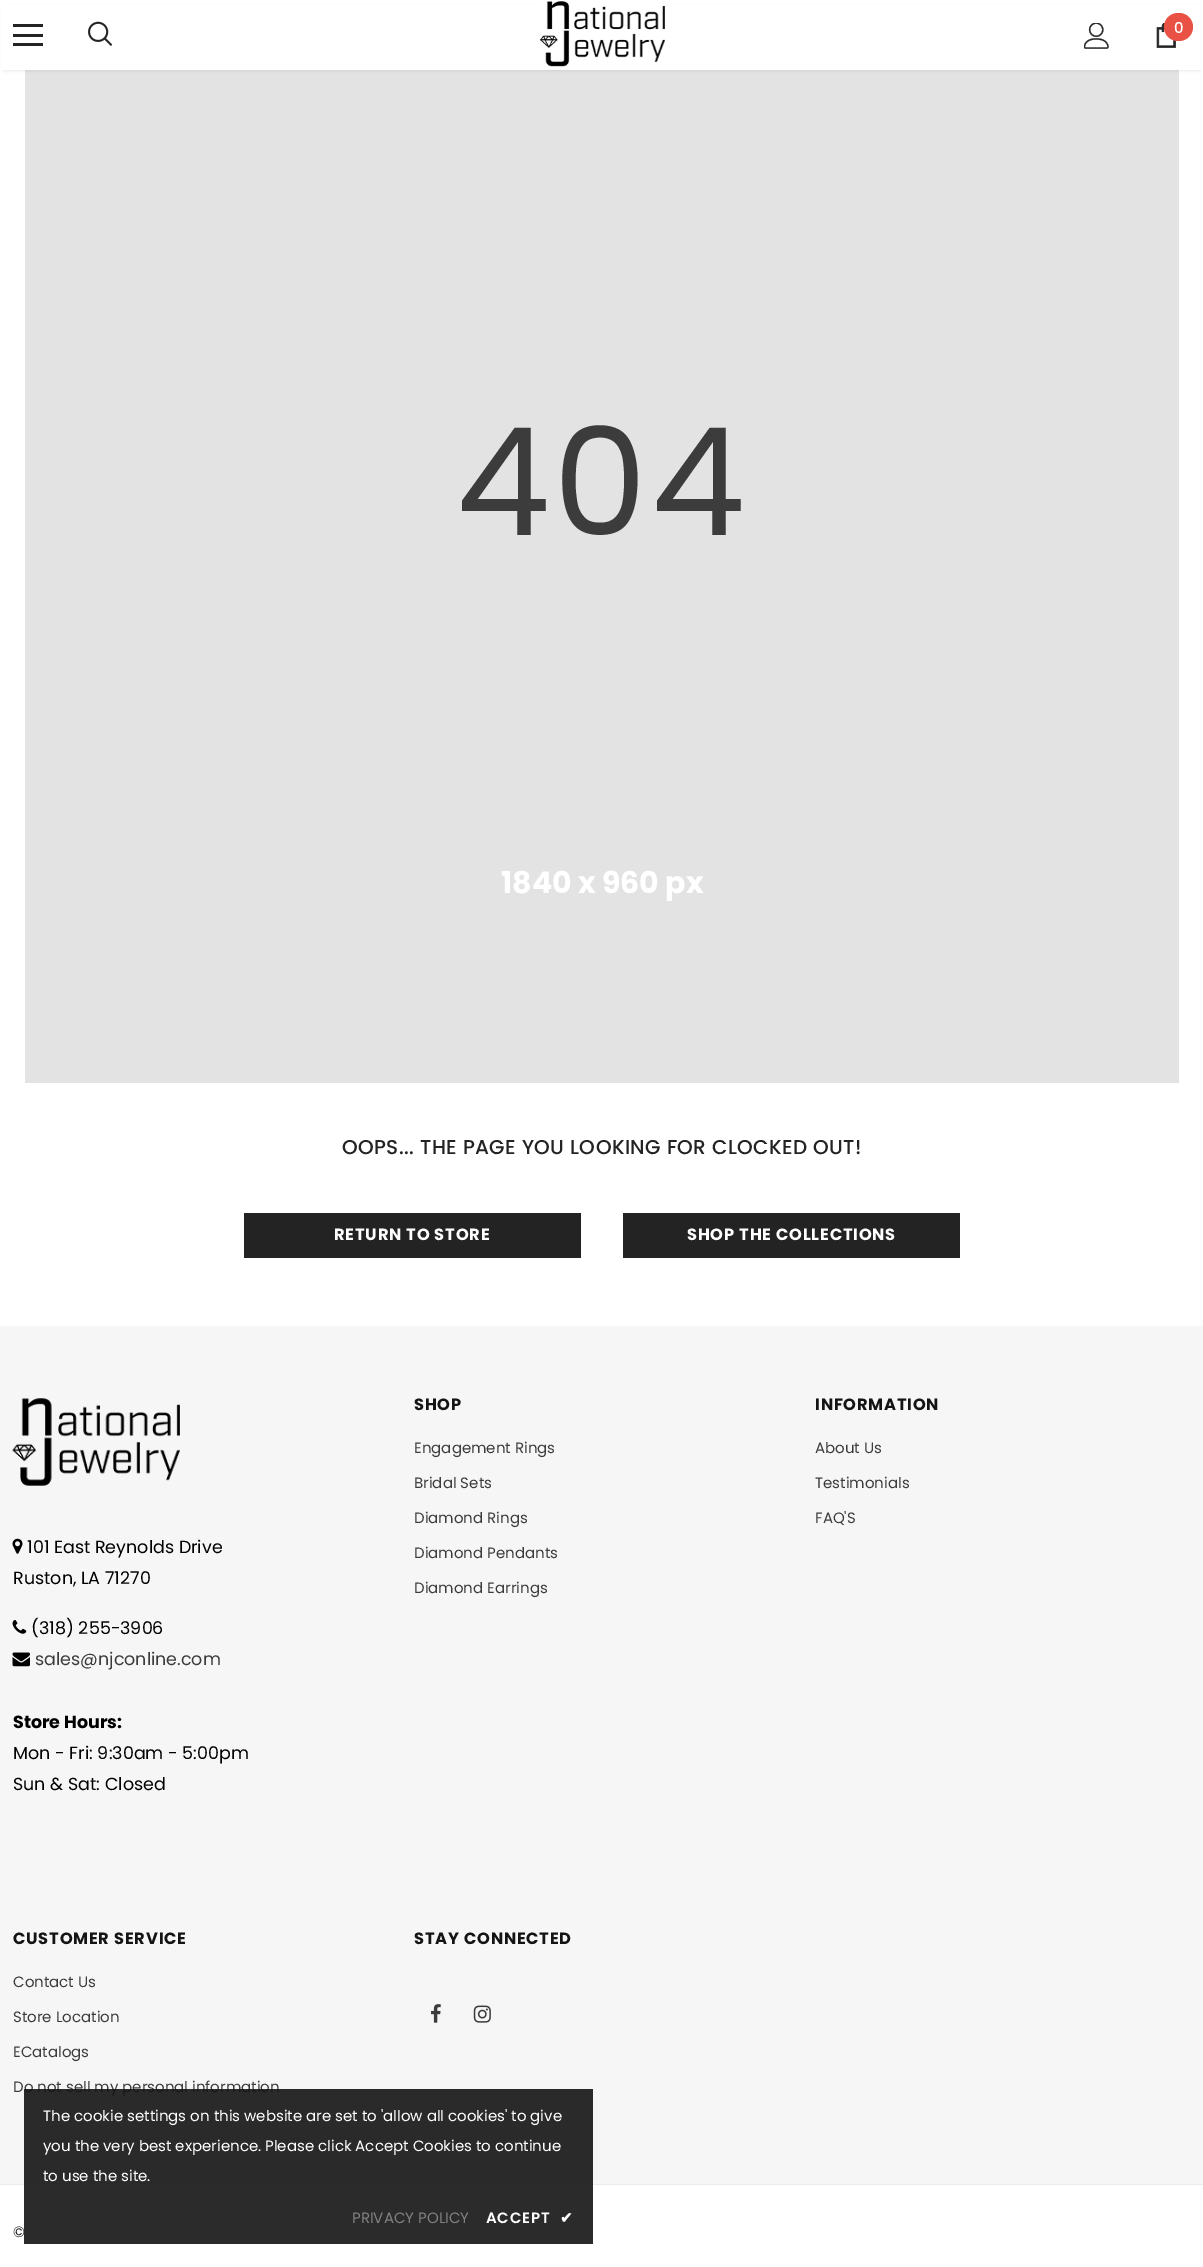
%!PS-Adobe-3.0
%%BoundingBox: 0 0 1203 2267
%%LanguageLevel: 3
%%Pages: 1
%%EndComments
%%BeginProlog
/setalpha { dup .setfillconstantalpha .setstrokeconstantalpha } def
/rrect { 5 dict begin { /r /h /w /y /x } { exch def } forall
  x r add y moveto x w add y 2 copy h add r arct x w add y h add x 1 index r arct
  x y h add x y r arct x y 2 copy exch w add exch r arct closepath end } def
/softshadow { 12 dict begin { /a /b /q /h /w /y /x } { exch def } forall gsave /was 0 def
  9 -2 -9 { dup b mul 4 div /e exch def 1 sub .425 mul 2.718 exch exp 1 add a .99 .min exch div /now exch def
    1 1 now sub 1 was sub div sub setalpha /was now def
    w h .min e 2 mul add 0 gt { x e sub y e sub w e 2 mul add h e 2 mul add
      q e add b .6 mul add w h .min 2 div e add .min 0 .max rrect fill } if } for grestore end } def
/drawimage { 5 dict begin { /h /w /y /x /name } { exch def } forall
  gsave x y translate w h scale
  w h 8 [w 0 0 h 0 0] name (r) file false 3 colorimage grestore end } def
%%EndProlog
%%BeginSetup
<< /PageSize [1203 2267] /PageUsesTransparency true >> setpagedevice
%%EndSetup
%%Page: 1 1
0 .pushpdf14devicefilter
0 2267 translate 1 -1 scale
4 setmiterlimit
1 setgray
0 0 1203 2267 rectfill
0.89 setgray
25 70 1154 1013 rectfill
0 setgray
4 8 1196 62 0 2 0.12 softshadow
1 setgray
1 5 1202 65 rectfill
0.137 setgray
13 24 30 3 rectfill
13 34 30 3 rectfill
13 43 30 3 rectfill
(images/1.raw) 88 21 24 25 drawimage
(images/2.raw) 539 1 126 66 drawimage
(images/3.raw) 1084 23 25 26 drawimage
(images/4.raw) 1156 23 20 25 drawimage
0.914 0.318 0.267 setrgbcolor
1164 13 29 28 14 rrect fill
0.137 setgray
244 1213 337 45 rectfill
623 1213 337 45 rectfill
0.965 setgray
0 1326 1203 858 rectfill
(images/5.raw) 12 1398 168 88 drawimage
(images/6.raw) 12 1538 11 16 drawimage
(images/7.raw) 12 1620 15 14 drawimage
(images/8.raw) 12 1652 18 15 drawimage
(images/9.raw) 431 2004 10 19 drawimage
(images/10.raw) 473 2005 18 18 drawimage
0.922 setgray
0 2184 1203 1 rectfill
/Poppins-Medium [15 0 0 -15 0 0] selectfont
1 setgray
1174 33 moveto (0) show
/Poppins-Regular [150 0 0 -150 0 0] selectfont
0.235 setgray
456 535 moveto 3 0 (404) ashow
/Poppins-Bold [30 0 0 -30 0 0] selectfont
1 setgray
501 893 moveto (1840 x 960 px) show
/Poppins-Medium [20 0 0 -20 0 0] selectfont
0.137 setgray
342 1154 moveto 0.4 0 (OOPS... THE PAGE YOU LOOKING FOR CLOCKED OUT!) ashow
/Poppins-Bold [16.25 0 0 -16.25 0 0] selectfont
1 setgray
334 1240 moveto 0.8 0 (RETURN TO STORE) ashow
687 1240 moveto 0.8 0 (SHOP THE COLLECTIONS) ashow
0.078 setgray
414 1410 moveto 0.8 0 (SHOP) ashow
/Poppins-Regular [15 0 0 -15 0 0] selectfont
0.235 setgray
414 1453 moveto (Engagement Rings) show
414 1488 moveto (Bridal Sets) show
414 1523 moveto (Diamond Rings) show
414 1558 moveto (Diamond Pendants) show
414 1593 moveto (Diamond Earrings) show
/Poppins-Bold [16.25 0 0 -16.25 0 0] selectfont
0.078 setgray
815 1410 moveto 0.8 0 (INFORMATION) ashow
/Poppins-Regular [15 0 0 -15 0 0] selectfont
0.235 setgray
815 1453 moveto (About Us) show
815 1488 moveto (Testimonials) show
815 1523 moveto (FAQ'S) show
/Poppins-Regular [17.5 0 0 -17.5 0 0] selectfont
0 setgray
27 1553 moveto (101 East Reynolds Drive) show
13 1584 moveto (Ruston, LA 71270) show
31 1634 moveto (\(318\) 255-3906) show
0.235 setgray
35 1665 moveto (sales@njconline.com) show
/Poppins-Bold [17.5 0 0 -17.5 0 0] selectfont
0 setgray
13 1728 moveto (Store Hours:) show
/Poppins-Regular [17.5 0 0 -17.5 0 0] selectfont
13 1759 moveto (Mon - Fri: 9:30am - 5:00pm) show
13 1790 moveto (Sun & Sat: Closed) show
/Poppins-Bold [16.25 0 0 -16.25 0 0] selectfont
0.078 setgray
13 1944 moveto 0.8 0 (CUSTOMER SERVICE) ashow
/Poppins-Regular [15 0 0 -15 0 0] selectfont
0.235 setgray
13 1987 moveto (Contact Us) show
13 2022 moveto (Store Location) show
13 2057 moveto (ECatalogs) show
13 2092 moveto (Do not sell my personal information) show
/Poppins-Bold [16.25 0 0 -16.25 0 0] selectfont
0.078 setgray
414 1944 moveto 0.8 0 (STAY CONNECTED) ashow
/Poppins-Regular [15 0 0 -15 0 0] selectfont
0.137 setgray
13 2237 moveto (©) show
0.9 setalpha
0.078 setgray
24 2089 569 155 rectfill
1 setalpha
1 setgray
43 2121 moveto (The cookie settings on this website are set to 'allow all cookies' to give) show
43 2151 moveto (you the very best experience. Please click Accept Cookies to continue) show
43 2181 moveto (to use the site.) show
0.506 setgray
352 2223 moveto (PRIVACY POLICY) show
/Poppins-SemiBold [15 0 0 -15 0 0] selectfont
1 setgray
486 2223 moveto 0.75 0 (ACCEPT) ashow
/DejaVuSans-Bold [15 0 0 -15 0 0] selectfont
560 2223 moveto 0.75 0 (✔) ashow
.poppdf14devicefilter showpage
%%EOF
